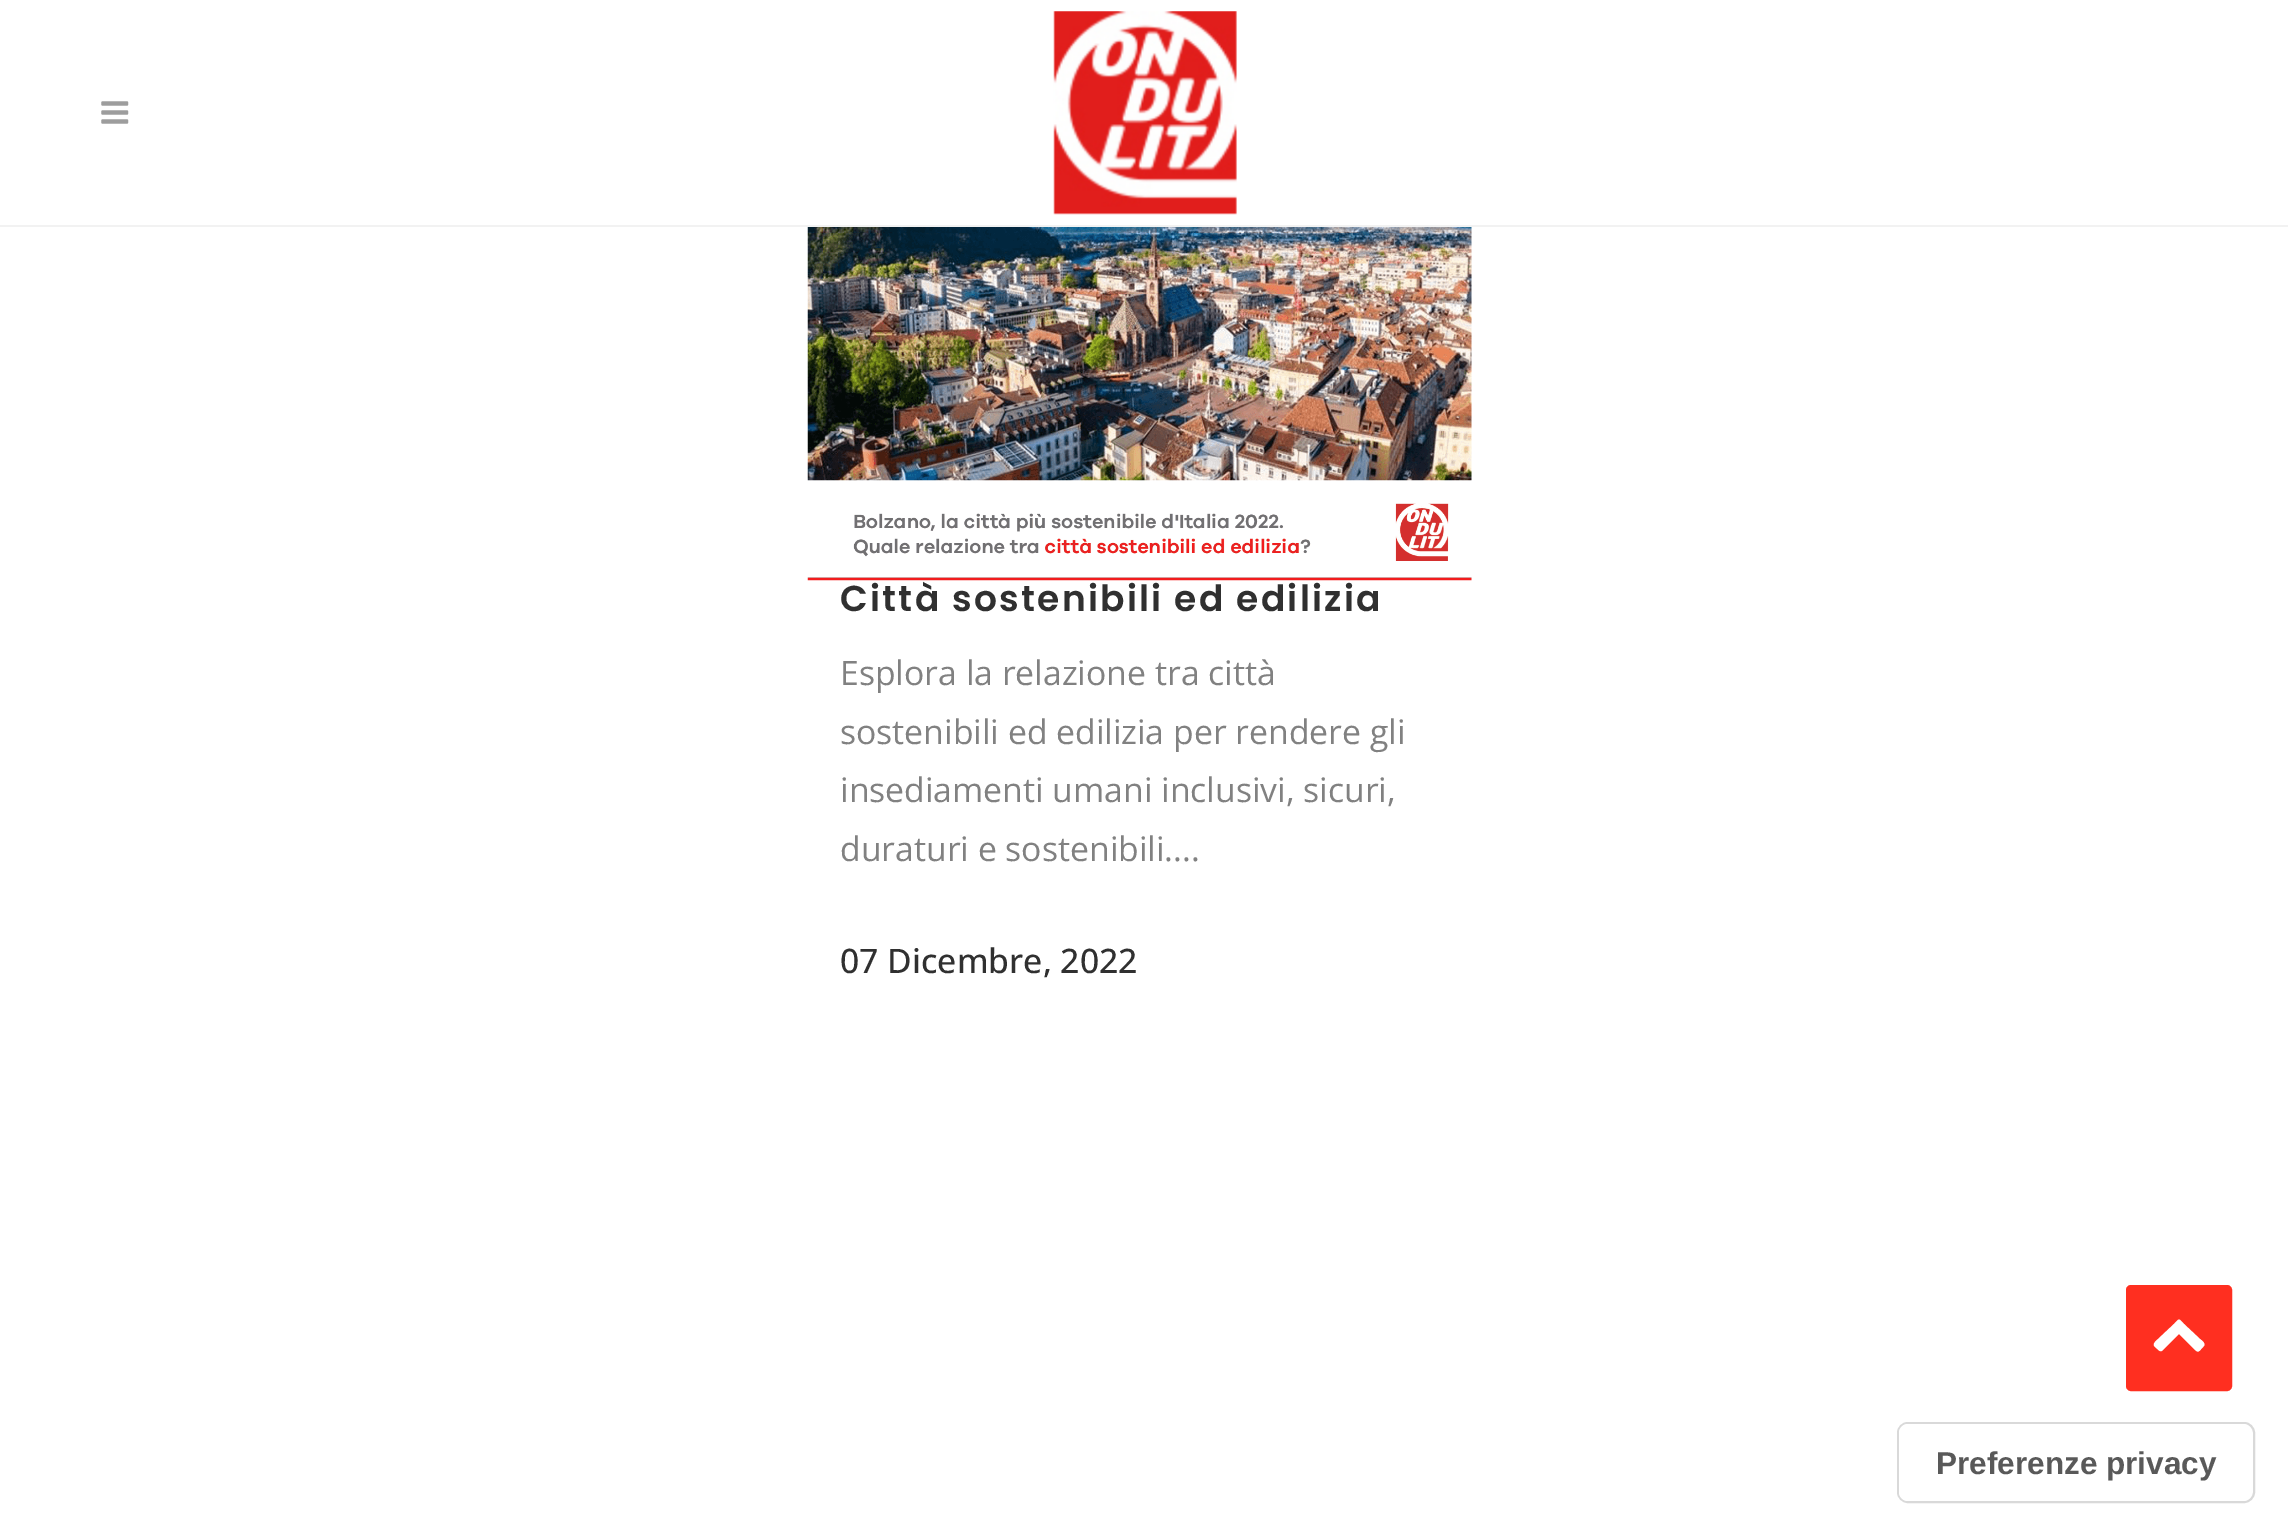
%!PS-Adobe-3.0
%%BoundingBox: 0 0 2288 1535
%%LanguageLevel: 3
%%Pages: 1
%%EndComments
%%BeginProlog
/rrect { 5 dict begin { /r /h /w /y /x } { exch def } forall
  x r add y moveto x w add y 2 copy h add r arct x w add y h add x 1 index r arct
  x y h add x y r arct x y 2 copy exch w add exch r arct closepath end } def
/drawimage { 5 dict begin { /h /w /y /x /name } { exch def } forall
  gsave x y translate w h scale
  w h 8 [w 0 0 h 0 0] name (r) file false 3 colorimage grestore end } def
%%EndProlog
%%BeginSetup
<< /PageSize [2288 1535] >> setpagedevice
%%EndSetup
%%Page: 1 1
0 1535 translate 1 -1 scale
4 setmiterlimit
1 setgray
0 0 2288 1535 rectfill
0.949 setgray
0 225 2288 2 rectfill
(images/1.raw) 101 101 28 23 drawimage
(images/2.raw) 1053 11 184 204 drawimage
(images/3.raw) 807 227 665 354 drawimage
1 0.184 0.125 setrgbcolor
2127 1286 104 104 4 rrect gsave fill grestore
2 setlinewidth
stroke
1 setgray
newpath 2204 1346 moveto 2198 1352 2199 1354 2193 1348 curveto 2179 1334 lineto 2165 1348 lineto 2160 1353 2161 1352 2155 1347 curveto 2152 1344 2155 1342 2158 1339 curveto 2174 1324 lineto 2180 1318 2178 1318 2184 1324 curveto 2200 1339 lineto 2201 1340 2206 1343 2204 1346 curveto closepath fill
0.851 setgray
1898 1423 356 79 10 rrect stroke
1 setgray
1899 1424 353 77 9 rrect fill
/Poppins-SemiBold [36 0 0 -36 0 0] selectfont
0.188 setgray
840 611 moveto 2.25 0 (Città sostenibili ed edilizia) ashow
/OpenSans-Regular [33.75 0 0 -33.75 0 0] selectfont
0.506 setgray
840 685 moveto (Esplora la relazione tra città) show
840 744 moveto (sostenibili ed edilizia per rendere gli) show
840 802 moveto (insediamenti umani inclusivi, sicuri,) show
840 861 moveto (duraturi e sostenibili....) show
/OpenSans-Medium [33.75 0 0 -33.75 0 0] selectfont
0.188 setgray
840 973 moveto (07 Dicembre, 2022) show
/LiberationSans-Bold [31.5 0 0 -31.5 0 0] selectfont
0.349 setgray
1936 1474 moveto (Preferenze privacy) show
showpage
%%EOF
